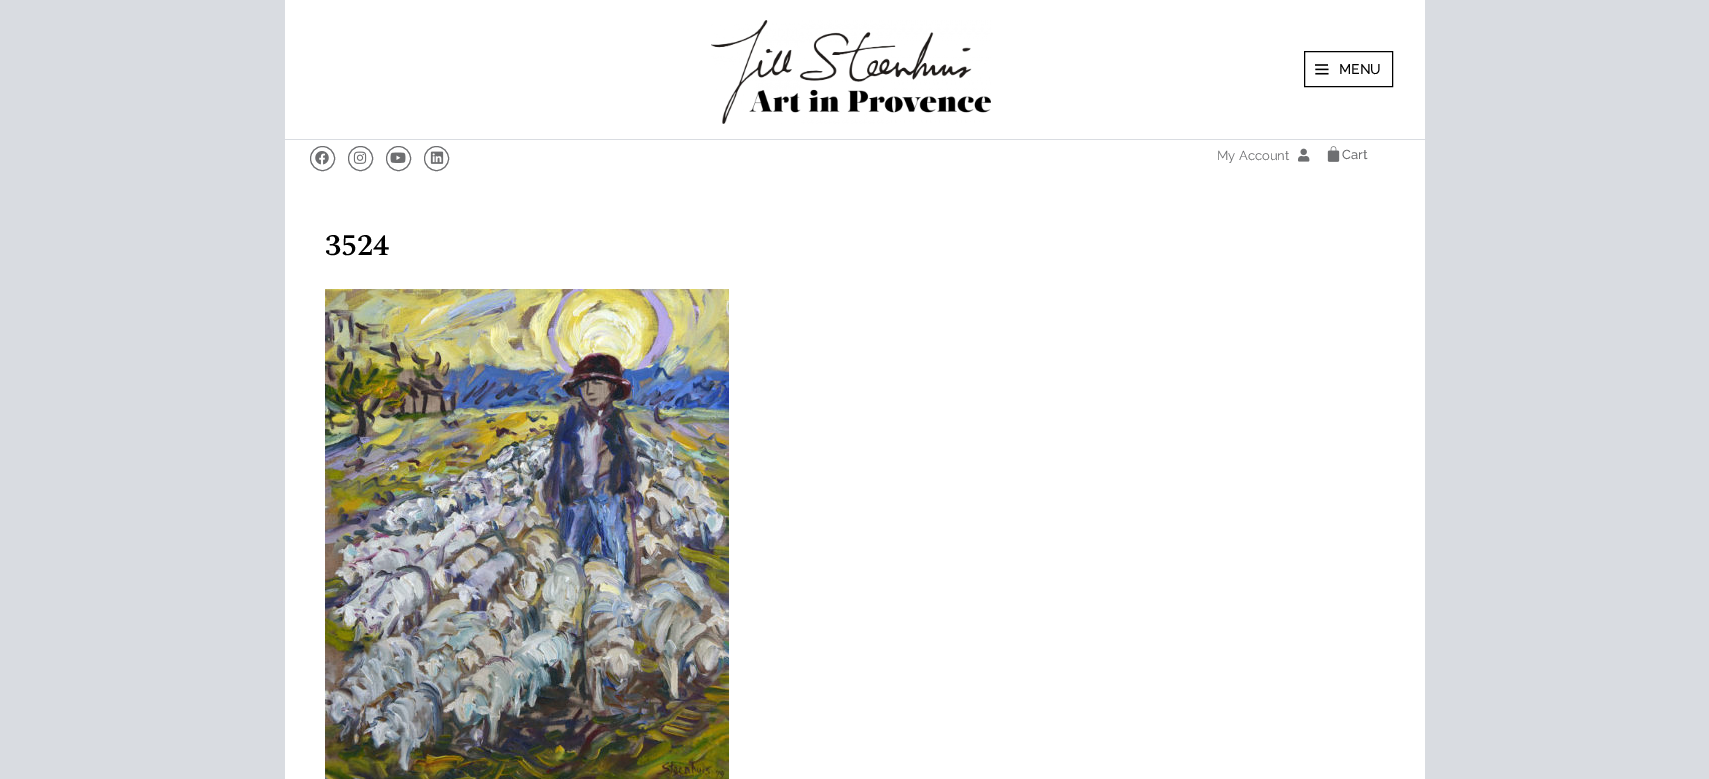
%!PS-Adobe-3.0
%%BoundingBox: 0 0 1709 779
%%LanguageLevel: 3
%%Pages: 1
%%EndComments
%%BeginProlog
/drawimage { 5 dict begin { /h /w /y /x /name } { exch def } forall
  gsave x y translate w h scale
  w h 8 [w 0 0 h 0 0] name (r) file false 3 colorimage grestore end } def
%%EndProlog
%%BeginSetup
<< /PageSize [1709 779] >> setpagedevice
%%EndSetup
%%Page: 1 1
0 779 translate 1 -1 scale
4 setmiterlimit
0.851 0.863 0.882 setrgbcolor
0 0 1709 779 rectfill
1 setgray
285 0 1140 139 rectfill
(images/1.raw) 711 20 280 104 drawimage
0 setgray
1304.5 51.5 88 35 rectstroke
(images/2.raw) 1315 64 14 11 drawimage
1 setgray
285 140 1140 51 rectfill
0.431 0.435 0.443 setrgbcolor
newpath 322.5 158.5 12 0 360 arc closepath stroke
(images/3.raw) 315 151 14 14 drawimage
newpath 360.5 158.5 12 0 360 arc closepath stroke
(images/4.raw) 353 151 14 13 drawimage
newpath 398.5 158.5 12 0 360 arc closepath stroke
(images/5.raw) 390 152 16 11 drawimage
newpath 436.5 158.5 12 0 360 arc closepath stroke
(images/6.raw) 430 151 14 13 drawimage
(images/7.raw) 1298 148 12 14 drawimage
(images/8.raw) 1327 146 13 16 drawimage
1 setgray
285 191 1140 588 rectfill
(images/9.raw) 325 289 404 490 drawimage
/Raleway-Medium [14 0 0 -14 0 0] selectfont
0 setgray
1339 74 moveto (MENU) show
/Raleway-Regular [13 0 0 -13 0 0] selectfont
0.431 0.435 0.443 setrgbcolor
1217 160 moveto (My Account) show
/Raleway-Medium [13 0 0 -13 0 0] selectfont
1342 159 moveto (Cart) show
/Spectral-SemiBold [30 0 0 -30 0 0] selectfont
0 setgray
325 255 moveto (3524) show
showpage
%%EOF
